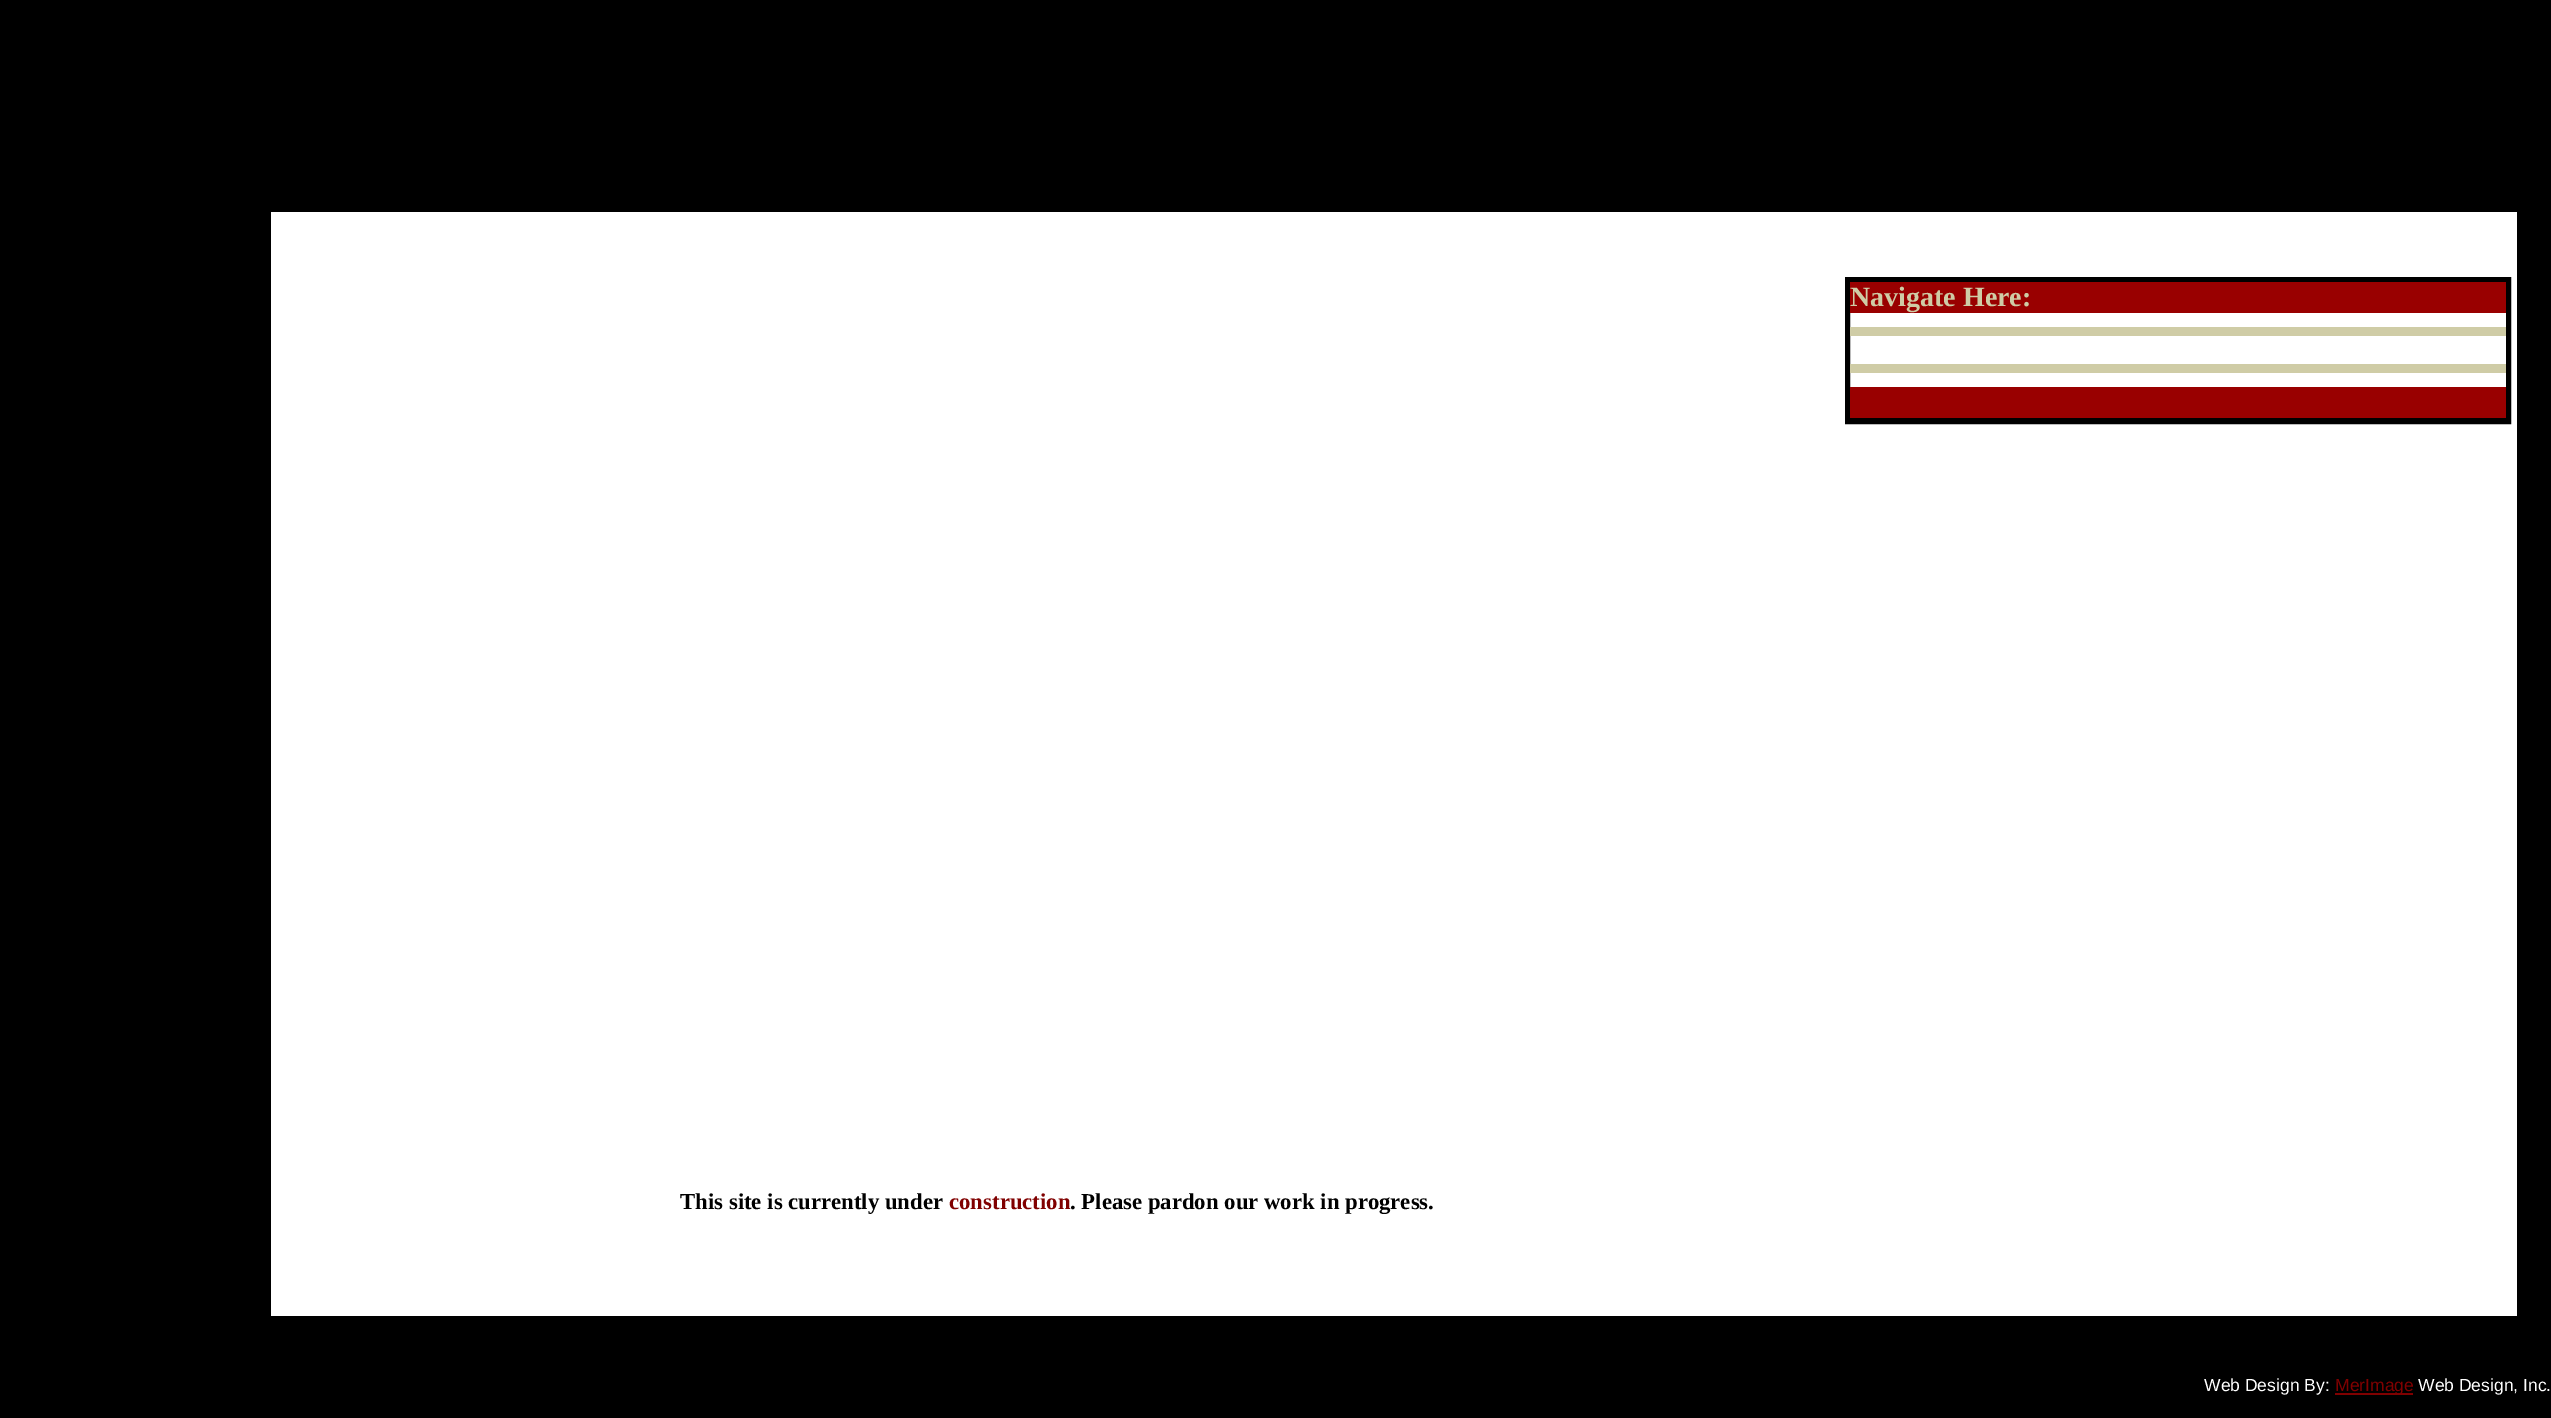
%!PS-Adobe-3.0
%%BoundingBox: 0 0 2551 1418
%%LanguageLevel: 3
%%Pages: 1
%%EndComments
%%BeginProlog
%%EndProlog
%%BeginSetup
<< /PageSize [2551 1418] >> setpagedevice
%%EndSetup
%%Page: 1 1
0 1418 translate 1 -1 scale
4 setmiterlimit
0 setgray
0 0 2551 1418 rectfill
1 setgray
271 212 2246 1104 rectfill
0 setgray
4 setlinewidth
1847 279 662 143 rectstroke
2 setlinewidth
1849 281 658 138 rectstroke
0.6 0 0 setrgbcolor
1850 282 656 31 rectfill
0.812 0.8 0.651 setrgbcolor
1850 327 656 9 rectfill
1850 364 656 9 rectfill
0.6 0 0 setrgbcolor
1850 387 656 31 rectfill
0.502 0 0 setrgbcolor
2335 1393 78 2 rectfill
/LiberationSerif-Bold [28 0 0 -28 0 0] selectfont
0.812 0.8 0.651 setrgbcolor
1850 306 moveto (Navigate Here:) show
/LiberationSerif-Bold [22.75 0 0 -22.75 0 0] selectfont
0 setgray
680 1209 moveto (This site is currently under) show
0.502 0 0 setrgbcolor
949 1209 moveto (construction) show
0 setgray
1070 1209 moveto (. Please pardon our work in progress.) show
/LiberationSans-Regular [17.5 0 0 -17.5 0 0] selectfont
1 setgray
2204 1391 moveto (Web Design By:) show
0.502 0 0 setrgbcolor
2335 1391 moveto (MerImage) show
1 setgray
2418 1391 moveto (Web Design, Inc.) show
showpage
%%EOF
